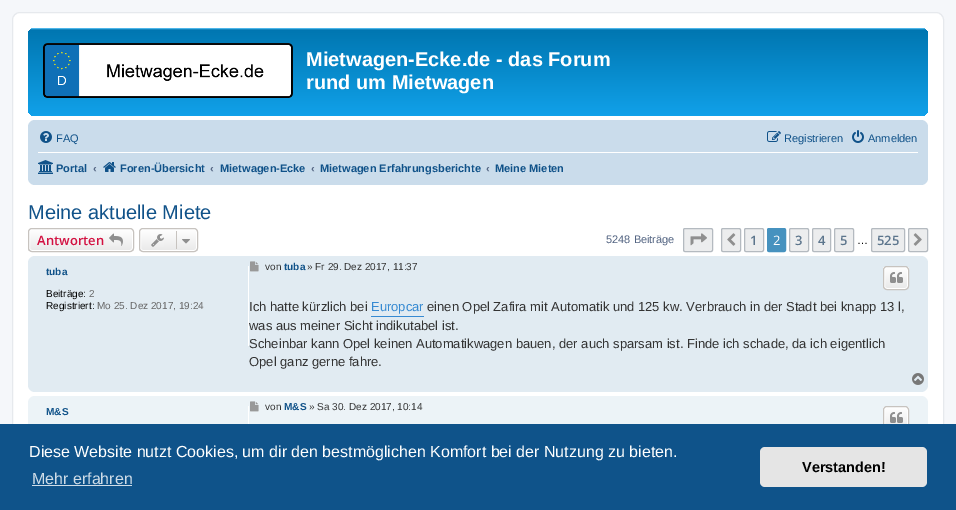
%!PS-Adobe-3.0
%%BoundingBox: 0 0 956 510
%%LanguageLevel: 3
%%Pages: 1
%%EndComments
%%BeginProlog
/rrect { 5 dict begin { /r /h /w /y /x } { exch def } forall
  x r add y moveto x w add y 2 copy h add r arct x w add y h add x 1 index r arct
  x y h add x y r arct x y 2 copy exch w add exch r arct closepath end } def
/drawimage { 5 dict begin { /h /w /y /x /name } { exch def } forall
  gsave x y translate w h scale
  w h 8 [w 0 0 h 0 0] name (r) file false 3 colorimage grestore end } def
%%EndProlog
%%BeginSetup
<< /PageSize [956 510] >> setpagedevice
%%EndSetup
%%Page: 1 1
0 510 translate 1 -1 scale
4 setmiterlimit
0.961 0.969 0.98 setrgbcolor
0 0 956 510 rectfill
1 setgray
12.5 12.5 931 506 7.5 rrect gsave fill grestore
0.902 0.914 0.929 setrgbcolor
stroke
gsave 28 28 900 88 7 rrect clip newpath
<< /ShadingType 2 /ColorSpace /DeviceRGB /Coords [478 28 478 120] /Extend [true true] /Function << /FunctionType 3 /Domain [0 1] /Functions [<< /FunctionType 2 /Domain [0 1] /C0 [0.416 0.808 1] /C1 [0 0.463 0.694] /N 1 >> << /FunctionType 2 /Domain [0 1] /C0 [0 0.463 0.694] /C1 [0.071 0.639 0.922] /N 1 >>] /Bounds [0.02] /Encode [0 1 0 1] >> >> shfill grestore
(images/1.raw) 43 43 250 55 drawimage
0.792 0.863 0.922 setrgbcolor
28 120 900 65 7 rrect fill
(images/2.raw) 40 131 12 12 drawimage
(images/3.raw) 767 131 14 11 drawimage
(images/4.raw) 852 130 12 13 drawimage
1 setgray
38 152 880 1 rectfill
(images/5.raw) 38 160 15 14 drawimage
(images/6.raw) 103 162 13 10 drawimage
gsave
28 228 106 24 4 rrect clip newpath
gsave newpath 28 229 moveto 134 229 lineto 134 251 lineto 28 251 lineto closepath clip newpath
<< /ShadingType 2 /ColorSpace /DeviceRGB /Coords [81 229 81 251] /Extend [true true] /Function << /FunctionType 2 /Domain [0 1] /C0 [1 1 1] /C1 [0.914 0.914 0.914] /N 1 >> >> shfill grestore
grestore
29.5 229.5 103 21 2.5 rrect stroke
0.78 0.765 0.749 setrgbcolor
28.5 228.5 105 23 3.5 rrect stroke
(images/7.raw) 109 233 14 13 drawimage
gsave
139 228 59 24 4 rrect clip newpath
gsave newpath 139 229 moveto 198 229 lineto 198 251 lineto 139 251 lineto closepath clip newpath
<< /ShadingType 2 /ColorSpace /DeviceRGB /Coords [169 229 169 251] /Extend [true true] /Function << /FunctionType 2 /Domain [0 1] /C0 [1 1 1] /C1 [0.914 0.914 0.914] /N 1 >> >> shfill grestore
grestore
1 setgray
140.5 229.5 56 21 2.5 rrect stroke
0.78 0.765 0.749 setrgbcolor
139.5 228.5 58 23 3.5 rrect stroke
(images/8.raw) 151 234 13 13 drawimage
176 231 1 18 rectfill
(images/9.raw) 182 239 8 5 drawimage
0.925 0.929 0.933 setrgbcolor
683.5 228.5 29 23 1.5 rrect gsave fill grestore
0.706 0.729 0.753 setrgbcolor
stroke
(images/10.raw) 690 233 17 13 drawimage
0.925 0.929 0.933 setrgbcolor
721.5 228.5 19 23 1.5 rrect gsave fill grestore
0.706 0.729 0.753 setrgbcolor
stroke
(images/11.raw) 727 233 9 13 drawimage
0.925 0.929 0.933 setrgbcolor
744.5 228.5 19 23 1.5 rrect gsave fill grestore
0.706 0.729 0.753 setrgbcolor
stroke
0.275 0.573 0.749 setrgbcolor
767.5 228.5 18 23 1.5 rrect gsave fill grestore
stroke
0.925 0.929 0.933 setrgbcolor
789.5 228.5 19 23 1.5 rrect gsave fill grestore
0.706 0.729 0.753 setrgbcolor
stroke
0.925 0.929 0.933 setrgbcolor
812.5 228.5 18 23 1.5 rrect gsave fill grestore
0.706 0.729 0.753 setrgbcolor
stroke
0.925 0.929 0.933 setrgbcolor
834.5 228.5 19 23 1.5 rrect gsave fill grestore
0.706 0.729 0.753 setrgbcolor
stroke
0.925 0.929 0.933 setrgbcolor
871.5 228.5 33 23 1.5 rrect gsave fill grestore
0.706 0.729 0.753 setrgbcolor
stroke
0.925 0.929 0.933 setrgbcolor
908.5 228.5 19 23 1.5 rrect gsave fill grestore
0.706 0.729 0.753 setrgbcolor
stroke
(images/12.raw) 913 233 9 13 drawimage
0.882 0.922 0.949 setrgbcolor
28 256 900 136 7 rrect fill
1 setgray
248 266 1 80 rectfill
(images/13.raw) 250 261 9 11 drawimage
gsave
883 266 26 24 4 rrect clip newpath
gsave newpath 883 267 moveto 909 267 lineto 909 289 lineto 883 289 lineto closepath clip newpath
<< /ShadingType 2 /ColorSpace /DeviceRGB /Coords [896 267 896 289] /Extend [true true] /Function << /FunctionType 2 /Domain [0 1] /C0 [1 1 1] /C1 [0.914 0.914 0.914] /N 1 >> >> shfill grestore
grestore
884.5 267.5 23 21 2.5 rrect stroke
0.78 0.765 0.749 setrgbcolor
883.5 266.5 25 23 3.5 rrect stroke
(images/14.raw) 890 272 13 11 drawimage
0.212 0.541 0.824 setrgbcolor
371 316 53 1 rectfill
(images/15.raw) 912 373 12 12 drawimage
0.925 0.953 0.969 setrgbcolor
28 396 900 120 7 rrect fill
1 setgray
248 406 1 18 rectfill
(images/16.raw) 250 401 9 11 drawimage
gsave
883 406 26 25 4 rrect clip newpath
gsave newpath 883 407 moveto 909 407 lineto 909 424 lineto 883 424 lineto closepath clip newpath
<< /ShadingType 2 /ColorSpace /DeviceRGB /Coords [896 407 896 430] /Extend [true true] /Function << /FunctionType 2 /Domain [0 1] /C0 [1 1 1] /C1 [0.914 0.914 0.914] /N 1 >> >> shfill grestore
grestore
884.5 407.5 23 22 2.5 rrect stroke
0.78 0.765 0.749 setrgbcolor
883.5 406.5 25 24 3.5 rrect stroke
(images/14.raw) 890 412 13 11 drawimage
0.059 0.325 0.541 setrgbcolor
0 424 956 86 rectfill
0.812 0.867 0.91 setrgbcolor
32 485 100 1 rectfill
0.898 setgray
760 447 167 40 5 rrect fill
/LiberationSans-Bold [20 0 0 -20 0 0] selectfont
1 setgray
306 66 moveto (Mietwagen-Ecke.de - das Forum) show
306 89 moveto (rund um Mietwagen) show
/LiberationSans-Regular [11 0 0 -11 0 0] selectfont
0.063 0.322 0.537 setrgbcolor
56 142 moveto (FAQ) show
784 142 moveto (Registrieren) show
868 142 moveto (Anmelden) show
/LiberationSans-Bold [11 0 0 -11 0 0] selectfont
56 172 moveto (Portal) show
0.325 0.392 0.51 setrgbcolor
93 172 moveto (‹) show
0.063 0.322 0.537 setrgbcolor
120 172 moveto (Foren-Übersicht) show
0.325 0.392 0.51 setrgbcolor
210 172 moveto (‹) show
0.063 0.322 0.537 setrgbcolor
220 172 moveto (Mietwagen-Ecke) show
0.325 0.392 0.51 setrgbcolor
311 172 moveto (‹) show
0.063 0.322 0.537 setrgbcolor
320 172 moveto (Mietwagen Erfahrungsberichte) show
0.325 0.392 0.51 setrgbcolor
486 172 moveto (‹) show
0.063 0.322 0.537 setrgbcolor
495 172 moveto (Meine Mieten) show
/LiberationSans-Regular [20 0 0 -20 0 0] selectfont
28 219 moveto (Meine aktuelle Miete) show
/OpenSans-SemiBold [13 0 0 -13 0 0] selectfont
0.827 0.067 0.255 setrgbcolor
37 245 moveto (Antworten) show
/LiberationSans-Regular [11 0 0 -11 0 0] selectfont
0.325 0.392 0.51 setrgbcolor
606 243 moveto (5248 Beiträge) show
/OpenSans-SemiBold [13 0 0 -13 0 0] selectfont
0.361 0.459 0.549 setrgbcolor
750 245 moveto (1) show
/OpenSans-Regular [13 0 0 -13 0 0] selectfont
1 setgray
773 245 moveto (2) show
/OpenSans-SemiBold [13 0 0 -13 0 0] selectfont
0.361 0.459 0.549 setrgbcolor
795 245 moveto (3) show
818 245 moveto (4) show
840 245 moveto (5) show
/LiberationSans-Regular [11 0 0 -11 0 0] selectfont
0 setgray
857 244 moveto (…) show
/OpenSans-SemiBold [13 0 0 -13 0 0] selectfont
0.361 0.459 0.549 setrgbcolor
877 245 moveto (525) show
/LiberationSans-Bold [10 0 0 -10 0 0] selectfont
0.063 0.322 0.537 setrgbcolor
46 275 moveto (tuba) show
/LiberationSans-Regular [10 0 0 -10 0 0] selectfont
0 setgray
46 297 moveto (Beiträge:) show
0.4 setgray
89 297 moveto (2) show
0 setgray
46 309 moveto (Registriert:) show
0.4 setgray
97 309 moveto (Mo 25. Dez 2017, 19:24) show
0.2 setgray
265 270 moveto (von) show
/LiberationSans-Bold [10 0 0 -10 0 0] selectfont
0.063 0.322 0.537 setrgbcolor
284 270 moveto (tuba) show
/LiberationSans-Regular [10 0 0 -10 0 0] selectfont
0.2 setgray
307 270 moveto (» Fr 29. Dez 2017, 11:37) show
/LiberationSans-Regular [13 0 0 -13 0 0] selectfont
249 311 moveto (Ich hatte kürzlich bei) show
0.212 0.541 0.824 setrgbcolor
371 311 moveto (Europcar) show
0.2 setgray
427 311 moveto (einen Opel Zafira mit Automatik und 125 kw. Verbrauch in der Stadt bei knapp 13 l,) show
249 330 moveto (was aus meiner Sicht indikutabel ist.) show
249 348 moveto (Scheinbar kann Opel keinen Automatikwagen bauen, der auch sparsam ist. Finde ich schade, da ich eigentlich) show
249 366 moveto (Opel ganz gerne fahre.) show
/LiberationSans-Bold [10 0 0 -10 0 0] selectfont
0.063 0.322 0.537 setrgbcolor
46 415 moveto (M&S) show
/LiberationSans-Regular [10 0 0 -10 0 0] selectfont
0.2 setgray
265 410 moveto (von) show
/LiberationSans-Bold [10 0 0 -10 0 0] selectfont
0.063 0.322 0.537 setrgbcolor
284 410 moveto (M&S) show
/LiberationSans-Regular [10 0 0 -10 0 0] selectfont
0.2 setgray
309 410 moveto (» Sa 30. Dez 2017, 10:14) show
/LiberationSans-Regular [16 0 0 -16 0 0] selectfont
1 setgray
29 457 moveto (Diese Website nutzt Cookies, um dir den bestmöglichen Komfort bei der Nutzung zu bieten.) show
0.812 0.867 0.91 setrgbcolor
32 484 moveto (Mehr erfahren) show
/LiberationSans-Bold [14.5 0 0 -14.5 0 0] selectfont
0 setgray
802 472 moveto (Verstanden!) show
showpage
%%EOF
